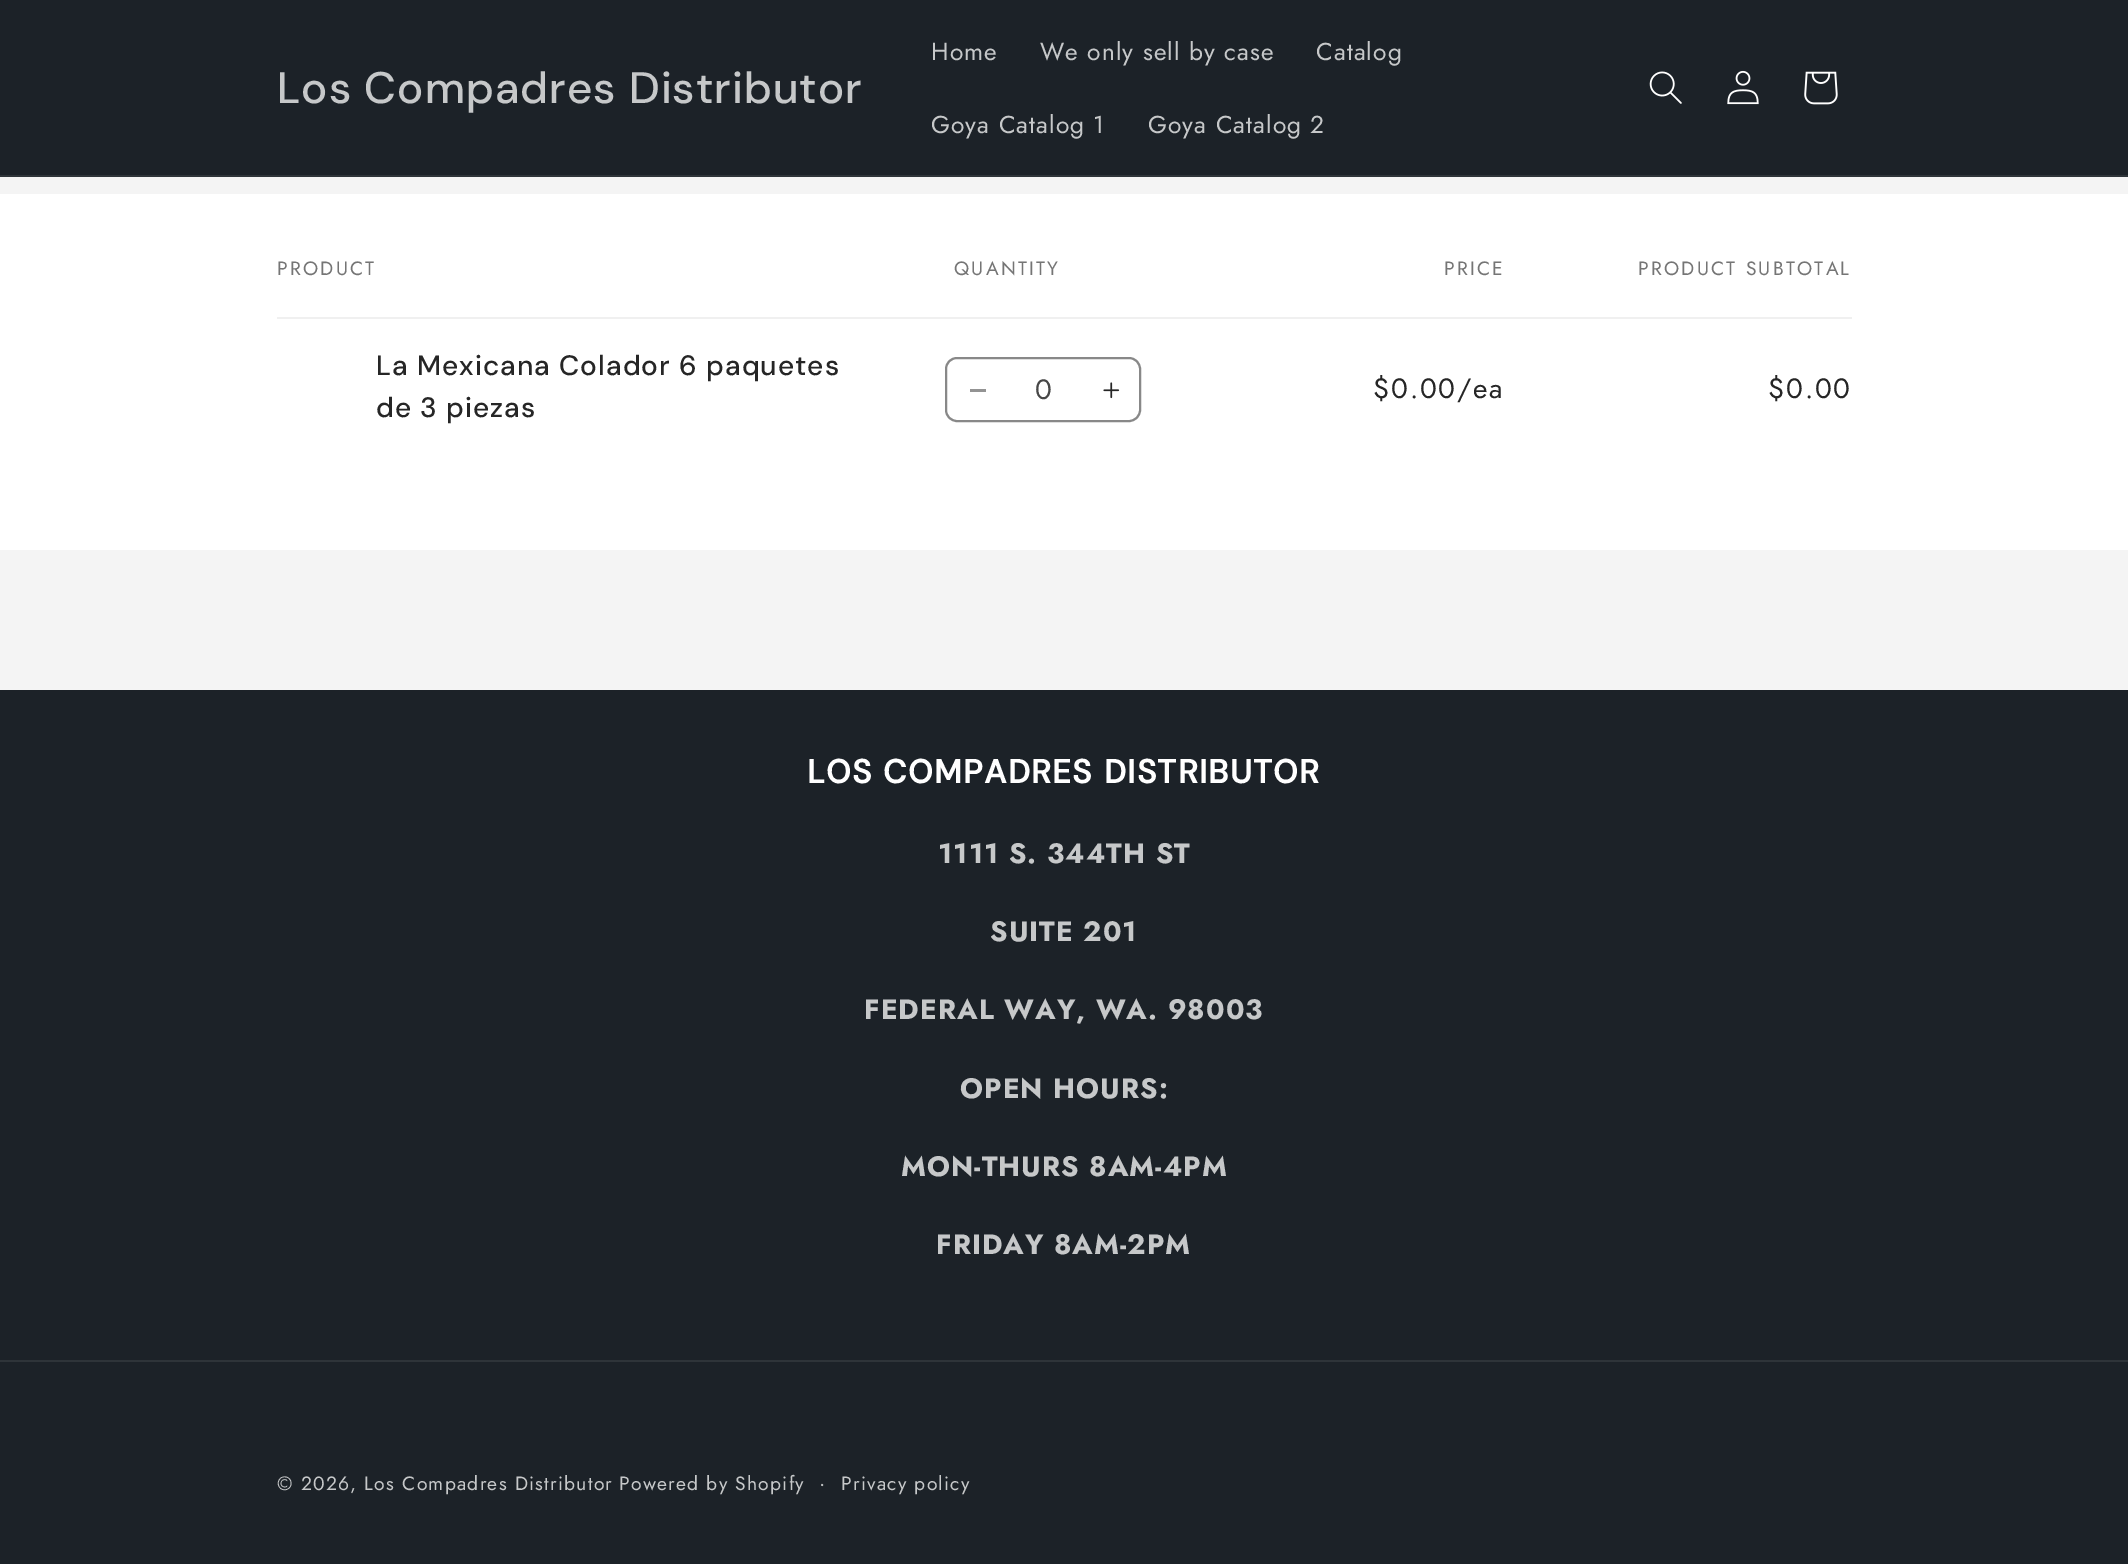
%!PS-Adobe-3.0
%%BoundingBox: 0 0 2128 1564
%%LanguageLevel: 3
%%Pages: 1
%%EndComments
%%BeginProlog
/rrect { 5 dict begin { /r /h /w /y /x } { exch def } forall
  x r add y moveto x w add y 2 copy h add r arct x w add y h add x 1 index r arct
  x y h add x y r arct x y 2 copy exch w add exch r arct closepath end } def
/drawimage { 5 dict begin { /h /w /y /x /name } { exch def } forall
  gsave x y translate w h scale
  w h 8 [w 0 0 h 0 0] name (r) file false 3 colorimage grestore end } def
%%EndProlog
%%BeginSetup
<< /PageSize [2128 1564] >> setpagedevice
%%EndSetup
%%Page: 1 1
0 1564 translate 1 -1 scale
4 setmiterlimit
0.957 setgray
0 0 2128 1564 rectfill
0.11 0.133 0.157 setrgbcolor
0 0 2128 175 rectfill
0.18 0.204 0.224 setrgbcolor
0 175 2128 2 rectfill
(images/1.raw) 1649 71 33 33 drawimage
(images/2.raw) 1727 70 32 35 drawimage
(images/3.raw) 1804 71 34 34 drawimage
1 setgray
0 194 2128 356 rectfill
0.941 setgray
277 317 1575 2 rectfill
0.576 setgray
970 389 16 3 rectfill
(images/4.raw) 1103 382 17 17 drawimage
0.533 setgray
2 setlinewidth
946 358 194 63 11 rrect stroke
0.11 0.133 0.157 setrgbcolor
0 690 2128 874 rectfill
0.18 0.204 0.224 setrgbcolor
0 1360 2128 2 rectfill
/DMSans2-Medium [44.1 0 0 -44.1 0 0] selectfont
0.776 0.784 0.788 setrgbcolor
277 103 moveto 1.1 0 (Los Compadres Distributor) ashow
/Jost-Regular [24.5 0 0 -24.5 0 0] selectfont
931 60 moveto 1.05 0 (Home) ashow
1040 60 moveto 1.05 0 (We only sell by case) ashow
1316 60 moveto 1.05 0 (Catalog) ashow
931 133 moveto 1.05 0 (Goya Catalog 1) ashow
1148 133 moveto 1.05 0 (Goya Catalog 2) ashow
/Jost-Regular [19.25 0 0 -19.25 0 0] selectfont
0.459 setgray
277 275 moveto 2.25 0 (PRODUCT) ashow
954 275 moveto 2.25 0 (QUANTITY) ashow
1444 275 moveto 2.25 0 (PRICE) ashow
1638 275 moveto 2.25 0 (PRODUCT SUBTOTAL) ashow
/DMSans-Medium [28 0 0 -28 0 0] selectfont
0.149 setgray
376 375 moveto 1.05 0 (La Mexicana Colador 6 paquetes) ashow
376 417 moveto 1.05 0 (de 3 piezas) ashow
/Jost-Regular [28 0 0 -28 0 0] selectfont
0.278 setgray
1035 399 moveto (0) show
0.149 setgray
1373 398 moveto 1.75 0 ($0.00/ea) ashow
1768 398 moveto 1.75 0 ($0.00) ashow
/DMSans-Bold [33.1 0 0 -33.1 0 0] selectfont
1 setgray
807 783 moveto 1 0 32 1.1 0 (LOS COMPADRES DISTRIBUTOR) awidthshow
/Jost-Bold [28 0 0 -28 0 0] selectfont
0.776 0.784 0.788 setrgbcolor
938 863 moveto 1.05 0 (1111 S. 344TH ST) ashow
990 941 moveto 1.05 0 (SUITE 201) ashow
864 1019 moveto 1.05 0 (FEDERAL WAY, WA. 98003) ashow
960 1098 moveto 1.05 0 (OPEN HOURS:) ashow
901 1176 moveto 1.05 0 (MON-THURS 8AM-4PM) ashow
936 1254 moveto 1.05 0 (FRIDAY 8AM-2PM) ashow
/Jost-Regular [19.25 0 0 -19.25 0 0] selectfont
277 1490 moveto 1.25 0 (© 2026, Los Compadres Distributor) ashow
619 1490 moveto 1.25 0 (Powered by Shopify) ashow
/Jost-Regular [21 0 0 -21 0 0] selectfont
819 1490 moveto 1.25 0 (·) ashow
/Jost-Regular [19.25 0 0 -19.25 0 0] selectfont
841 1490 moveto 1.25 0 (Privacy policy) ashow
showpage
%%EOF
